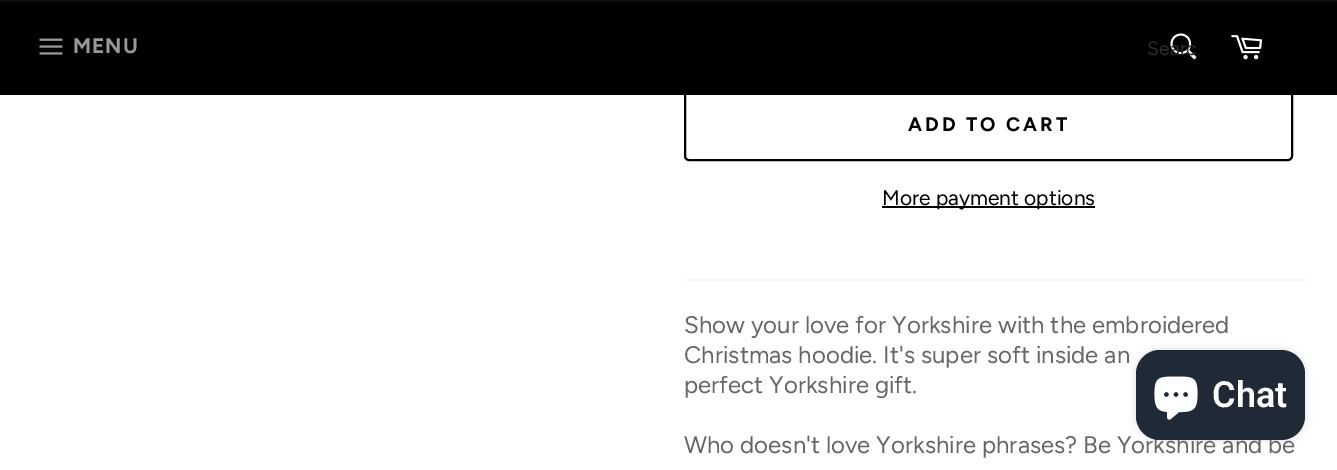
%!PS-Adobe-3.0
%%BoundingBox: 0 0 1337 470
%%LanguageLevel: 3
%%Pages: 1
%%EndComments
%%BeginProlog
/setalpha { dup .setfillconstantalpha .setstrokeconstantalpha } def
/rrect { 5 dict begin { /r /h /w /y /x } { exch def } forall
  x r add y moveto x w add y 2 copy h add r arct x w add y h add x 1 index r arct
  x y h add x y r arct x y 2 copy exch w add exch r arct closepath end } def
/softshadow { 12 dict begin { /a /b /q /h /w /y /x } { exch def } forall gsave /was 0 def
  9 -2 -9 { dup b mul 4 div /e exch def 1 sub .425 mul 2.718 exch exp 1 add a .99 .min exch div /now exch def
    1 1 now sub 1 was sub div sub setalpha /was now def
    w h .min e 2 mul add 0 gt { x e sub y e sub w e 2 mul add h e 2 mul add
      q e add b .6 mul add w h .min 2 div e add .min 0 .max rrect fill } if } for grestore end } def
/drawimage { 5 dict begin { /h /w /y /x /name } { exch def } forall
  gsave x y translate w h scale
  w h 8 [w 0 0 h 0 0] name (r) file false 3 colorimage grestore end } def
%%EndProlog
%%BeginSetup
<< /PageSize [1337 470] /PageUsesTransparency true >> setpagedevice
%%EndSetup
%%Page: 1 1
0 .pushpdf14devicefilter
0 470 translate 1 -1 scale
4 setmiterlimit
1 setgray
0 0 1337 470 rectfill
0 setgray
2 setlinewidth
685 90 607 70 4 rrect stroke
0 2 1337 93 rectfill
0.051 setgray
0 0 1337 2 rectfill
(images/1.raw) 39 38 24 17 drawimage
(images/2.raw) 1170 33 27 27 drawimage
(images/3.raw) 1231 35 31 25 drawimage
0 setgray
882 206 213 2 rectfill
0.969 setgray
684 279 624 2 rectfill
0 setgray
1136 350 169 90 24 4 0.15 softshadow
/Figtree-Bold [21 0 0 -21 0 0] selectfont
0.6 setgray
73 53 moveto 1 0 (MENU) ashow
gsave
1148 38 48 22 rectclip
/Figtree-Regular [19.5 0 0 -19.5 0 0] selectfont
0.169 setgray
1147 55 moveto (Searc) show
grestore
/Figtree-Bold [19.5 0 0 -19.5 0 0] selectfont
0 setgray
908 131 moveto 3 0 (ADD TO CART) ashow
/Figtree-Regular [21 0 0 -21 0 0] selectfont
882 205 moveto (More payment options) show
/Figtree-Regular [24 0 0 -24 0 0] selectfont
0.4 setgray
684 333 moveto (Show your love for Yorkshire with the embroidered) show
684 363 moveto (Christmas hoodie. It's super soft inside an) show
684 393 moveto (perfect Yorkshire gift.) show
684 453 moveto (Who doesn't love Yorkshire phrases? Be Yorkshire and be) show
0.125 0.165 0.212 setrgbcolor
1136 350 169 90 24 rrect fill
(images/4.raw) 1154 376 44 44 drawimage
/Roboto-SemiBold [36 0 0 -36 0 0] selectfont
1 setgray
1212 407 moveto (Chat) show
.poppdf14devicefilter showpage
%%EOF
